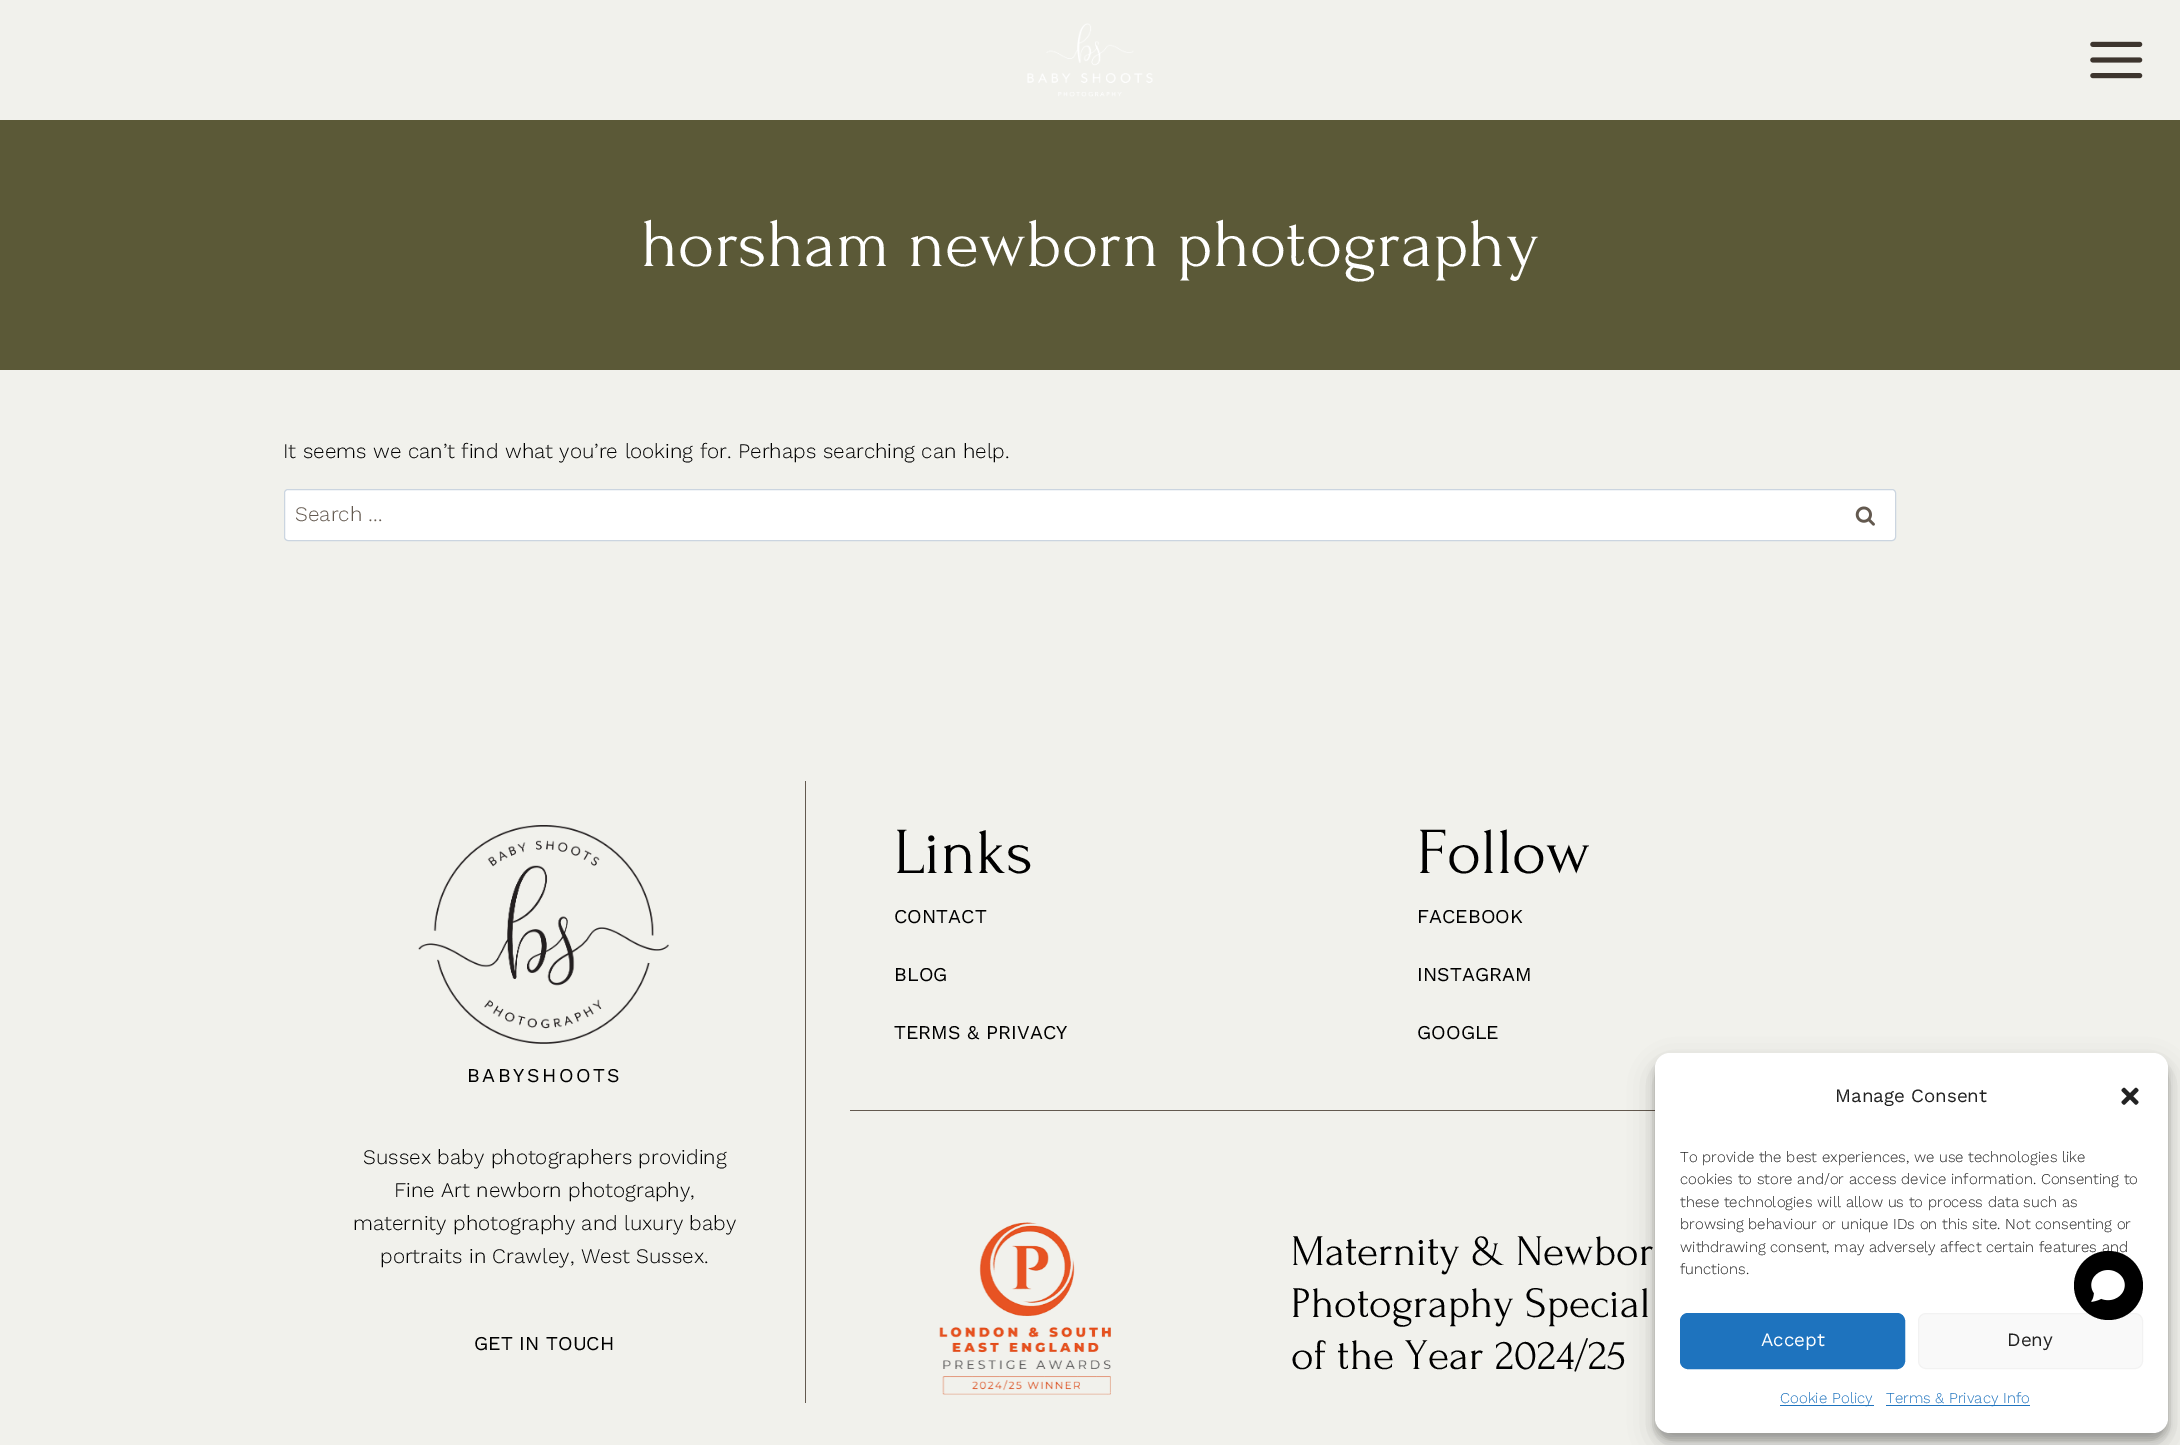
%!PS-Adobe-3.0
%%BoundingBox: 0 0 2180 1445
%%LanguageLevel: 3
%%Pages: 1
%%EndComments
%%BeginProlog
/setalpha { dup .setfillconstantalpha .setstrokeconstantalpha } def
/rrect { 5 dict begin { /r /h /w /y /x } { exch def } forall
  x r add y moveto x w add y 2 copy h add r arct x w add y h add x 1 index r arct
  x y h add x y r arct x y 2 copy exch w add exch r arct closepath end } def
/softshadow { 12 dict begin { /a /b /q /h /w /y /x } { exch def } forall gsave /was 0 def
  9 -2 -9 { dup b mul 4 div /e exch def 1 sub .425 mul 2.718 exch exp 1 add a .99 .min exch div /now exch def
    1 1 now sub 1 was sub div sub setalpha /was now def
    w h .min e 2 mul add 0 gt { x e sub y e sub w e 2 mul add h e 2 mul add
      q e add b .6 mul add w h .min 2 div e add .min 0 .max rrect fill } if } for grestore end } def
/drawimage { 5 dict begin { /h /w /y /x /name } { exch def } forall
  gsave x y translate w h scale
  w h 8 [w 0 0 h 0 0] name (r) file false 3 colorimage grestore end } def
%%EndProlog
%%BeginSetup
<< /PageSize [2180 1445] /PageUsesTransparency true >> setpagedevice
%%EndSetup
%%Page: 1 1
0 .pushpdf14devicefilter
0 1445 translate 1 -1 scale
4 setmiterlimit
0.945 0.945 0.925 setrgbcolor
0 0 2180 1445 rectfill
(images/1.raw) 1027 23 126 74 drawimage
(images/2.raw) 2090 41 53 38 drawimage
0.357 0.349 0.216 setrgbcolor
0 120 2180 250 rectfill
1 setgray
284.5 489.5 1611 51 3.5 rrect gsave fill grestore
0.796 0.835 0.878 setrgbcolor
stroke
(images/3.raw) 1855 506 20 20 drawimage
0.388 0.349 0.31 setrgbcolor
805 781 1 622 rectfill
(images/4.raw) 418 825 251 219 drawimage
850 1110 805 1 rectfill
(images/5.raw) 939 1222 172 173 drawimage
0 setgray
1655 1060 513 380 15 4 0.23 softshadow
1655 1065 513 380 15 12.5 0.19 softshadow
1 setgray
1655 1053 513 380 15 rrect fill
(images/6.raw) 2121 1087 18 18 drawimage
0.118 0.451 0.745 setrgbcolor
1680.5 1313.5 224 55 7.5 rrect gsave fill grestore
stroke
0.976 setgray
1918.5 1313.5 224 55 7.5 rrect gsave fill grestore
0.949 setgray
stroke
0.118 0.451 0.745 setrgbcolor
1780 1405 94 1 rectfill
1886 1405 144 1 rectfill
/Forum-Regular [69.75 0 0 -69.75 0 0] selectfont
1 setgray
641 266 moveto (horsham newborn photography) show
/WorkSans-Light [20.7 0 0 -20.7 0 0] selectfont
0 setgray
283 458 moveto (It seems we can’t find what you’re looking for. Perhaps searching can help.) show
0.388 0.349 0.31 setrgbcolor
295 521 moveto (Search …) show
/WorkSans-Regular [19.6 0 0 -19.6 0 0] selectfont
0 setgray
467 1082 moveto 2.5 0 (BABYSHOOTS) ashow
/WorkSans-Light [20.7 0 0 -20.7 0 0] selectfont
363 1164 moveto (Sussex baby photographers providing) show
394 1197 moveto (Fine Art newborn photography,) show
353 1230 moveto (maternity photography and luxury baby) show
380 1263 moveto (portraits in Crawley, West Sussex.) show
/WorkSans-Regular [19.6 0 0 -19.6 0 0] selectfont
474 1350 moveto (GET IN TOUCH) show
/Forum-Regular [65.5 0 0 -65.5 0 0] selectfont
894 873 moveto (Links) show
/WorkSans-Regular [19.6 0 0 -19.6 0 0] selectfont
894 923 moveto (CONTACT) show
894 981 moveto (BLOG) show
894 1039 moveto (TERMS & PRIVACY) show
/Forum-Regular [65.5 0 0 -65.5 0 0] selectfont
1417 873 moveto (Follow) show
/WorkSans-Regular [19.6 0 0 -19.6 0 0] selectfont
1417 923 moveto (FACEBOOK) show
1417 981 moveto (INSTAGRAM) show
1417 1039 moveto (GOOGLE) show
/Forum-Regular [43.5 0 0 -43.5 0 0] selectfont
1291 1265 moveto (Maternity & Newbor) show
1291 1317 moveto (Photography Special) show
1291 1369 moveto (of the Year 2024/25) show
/WorkSans-Regular [18.75 0 0 -18.75 0 0] selectfont
0.133 setgray
1835 1102 moveto (Manage Consent) show
/WorkSans-Light [15 0 0 -15 0 0] selectfont
1680 1162 moveto (To provide the best experiences, we use technologies like) show
1680 1184 moveto (cookies to store and/or access device information. Consenting to) show
1680 1207 moveto (these technologies will allow us to process data such as) show
1680 1229 moveto (browsing behaviour or unique IDs on this site. Not consenting or) show
1680 1252 moveto (withdrawing consent, may adversely affect certain features and) show
1680 1274 moveto (functions.) show
/WorkSans-Regular [18.75 0 0 -18.75 0 0] selectfont
1 setgray
1761 1346 moveto (Accept) show
0.133 setgray
2007 1346 moveto (Deny) show
/WorkSans-Light [15 0 0 -15 0 0] selectfont
0.118 0.451 0.745 setrgbcolor
1780 1403 moveto (Cookie Policy) show
1886 1403 moveto (Terms & Privacy Info) show
0 setgray
newpath 2108.5 1285.5 34.5 0 360 arc closepath fill
(images/7.raw) 2091 1270 34 32 drawimage
.poppdf14devicefilter showpage
%%EOF
